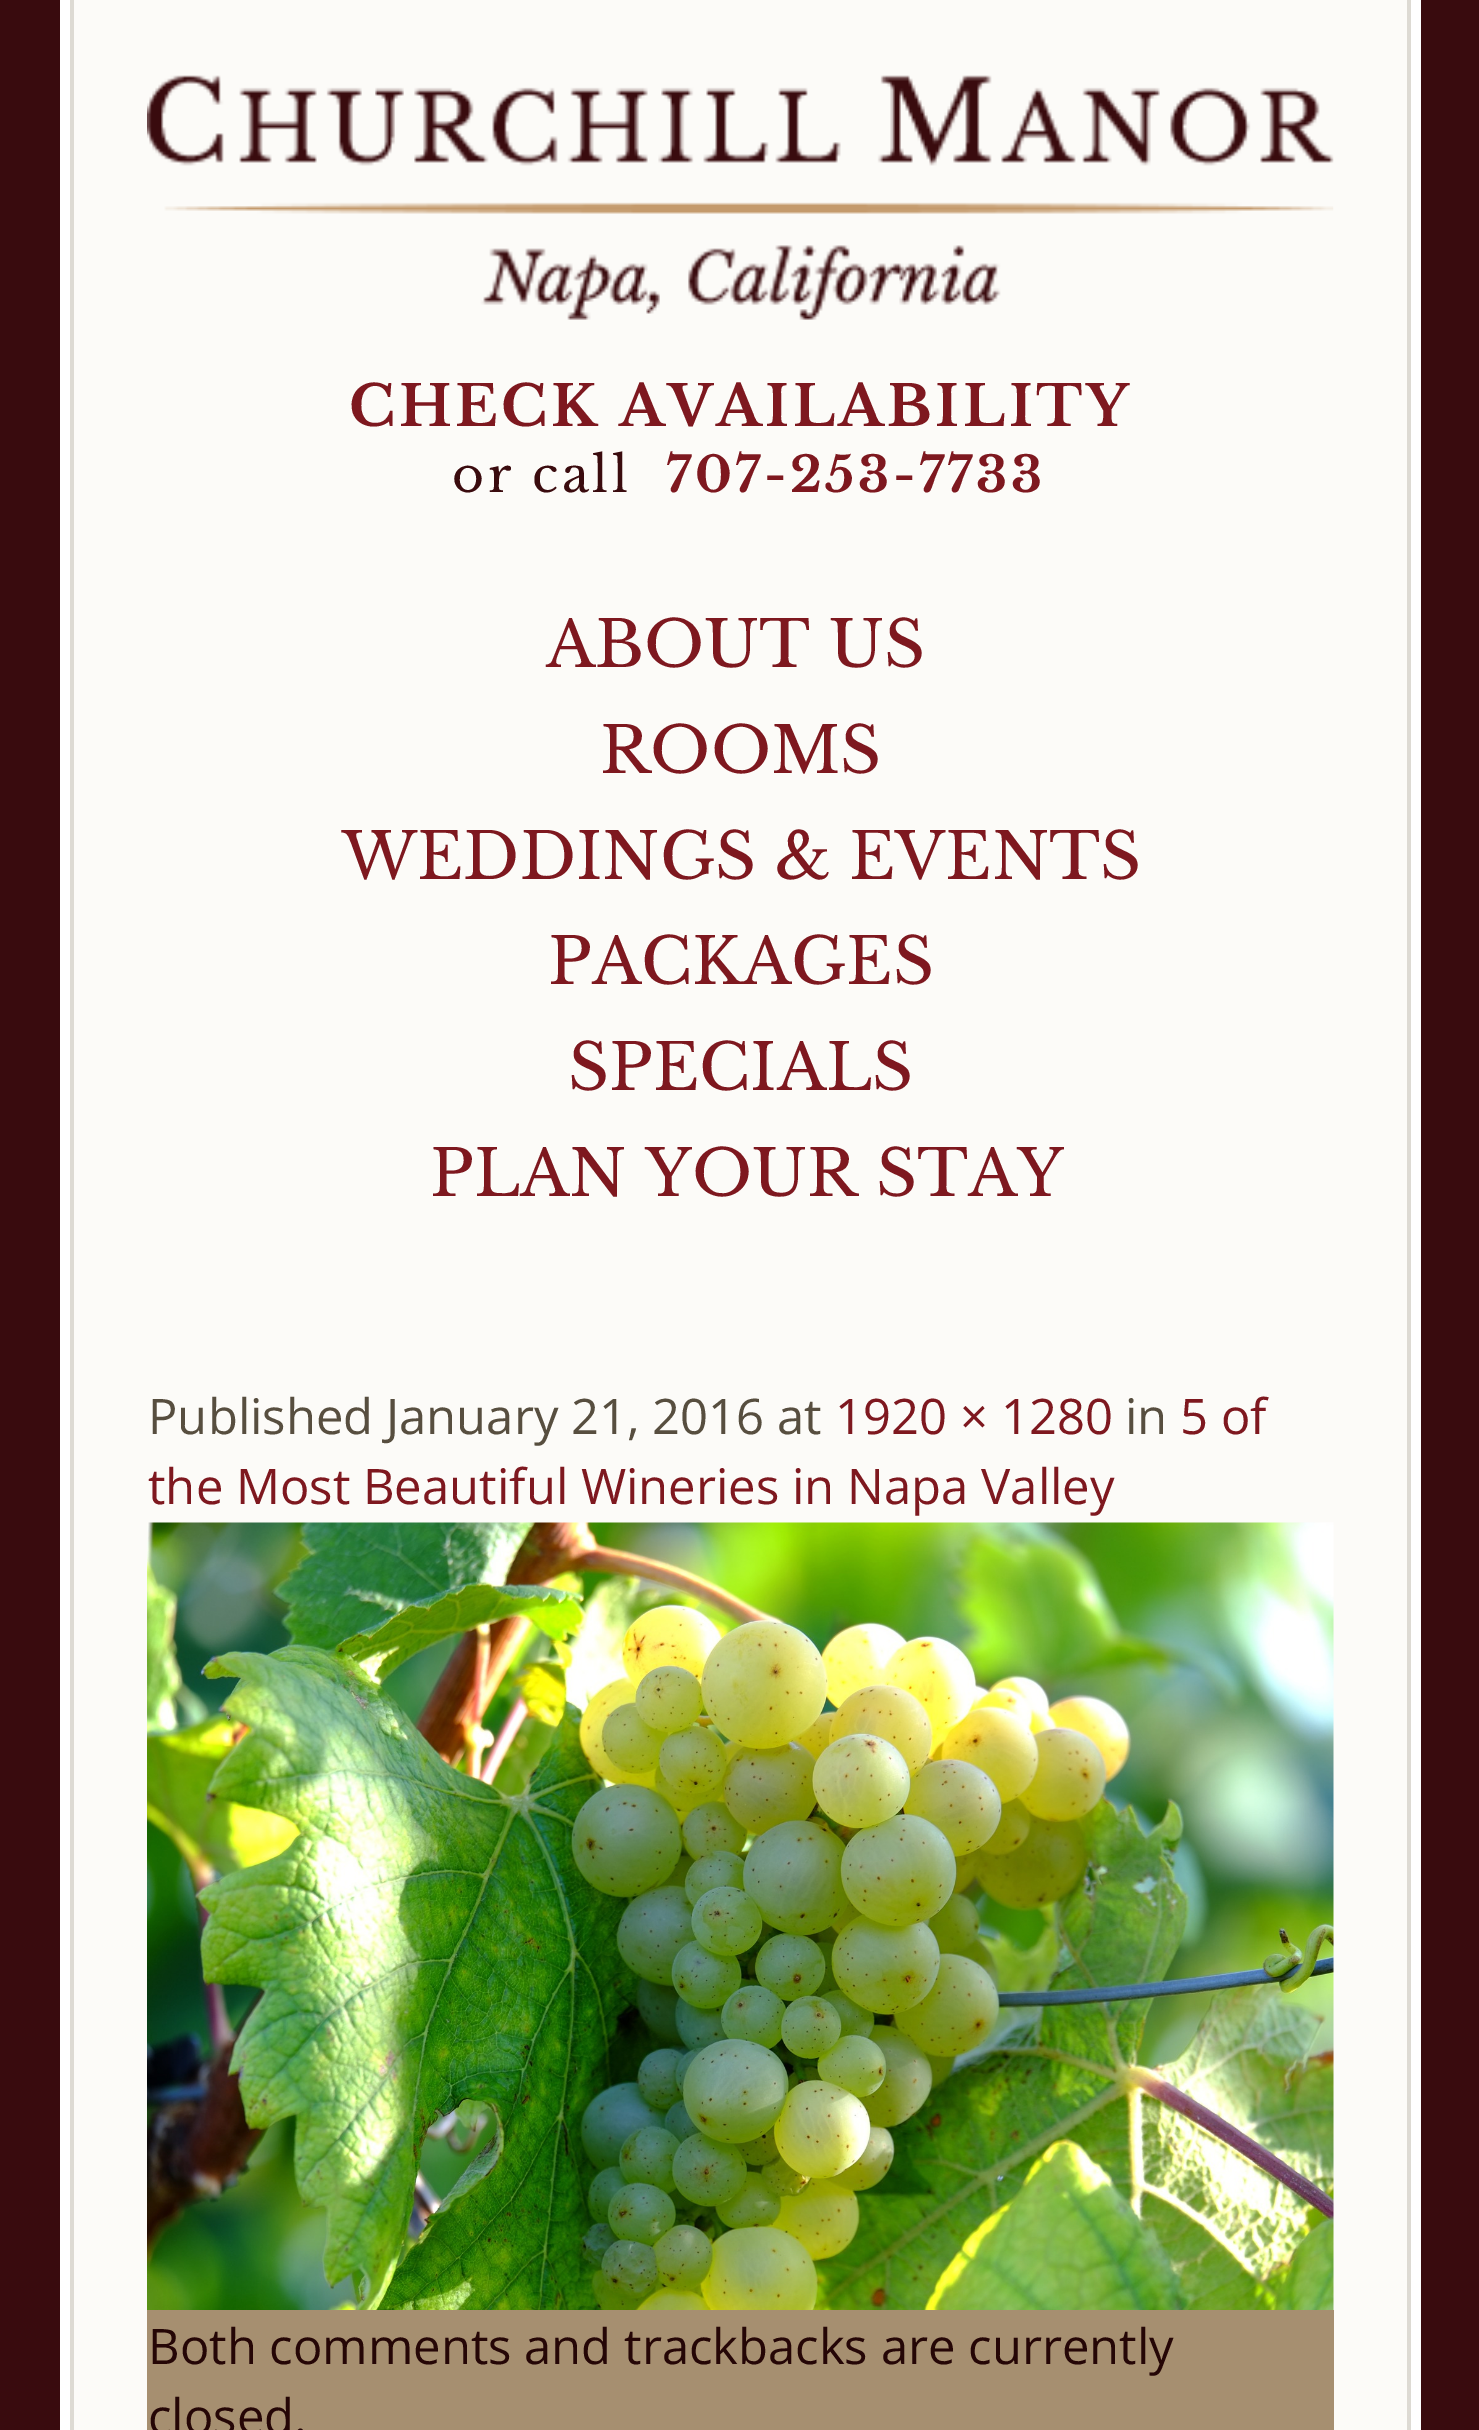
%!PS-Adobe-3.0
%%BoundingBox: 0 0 1479 2430
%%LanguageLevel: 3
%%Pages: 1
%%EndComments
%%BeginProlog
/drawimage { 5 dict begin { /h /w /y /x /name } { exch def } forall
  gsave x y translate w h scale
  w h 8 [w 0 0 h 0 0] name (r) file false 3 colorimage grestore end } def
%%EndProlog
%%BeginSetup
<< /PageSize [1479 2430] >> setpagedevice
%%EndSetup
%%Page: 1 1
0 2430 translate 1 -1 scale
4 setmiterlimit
0.224 0.043 0.055 setrgbcolor
0 0 1479 2430 rectfill
1 setgray
newpath 60 -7 moveto 60 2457 lineto 1414 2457 lineto 1414 -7 lineto closepath 70 0 moveto 70 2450 lineto 1410 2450 lineto 1410 0 lineto closepath eofill
newpath 67 -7 moveto 67 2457 lineto 1421 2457 lineto 1421 -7 lineto closepath 70 0 moveto 70 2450 lineto 1410 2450 lineto 1410 0 lineto closepath eofill
0.988 0.984 0.973 setrgbcolor
74 0 1333 2430 rectfill
0.867 0.855 0.827 setrgbcolor
1407 0 4 2430 rectfill
70 0 4 2430 rectfill
(images/1.raw) 147 75 1187 245 drawimage
(images/2.raw) 147 1522 1187 788 drawimage
0.651 0.561 0.439 setrgbcolor
147 2310 1187 120 rectfill
/LibreBaskerville-Bold [56 0 0 -56 0 0] selectfont
0.494 0.094 0.122 setrgbcolor
349 426 moveto 3.5 0 (CHECK AVAILABILITY) ashow
/LibreBaskerville-Regular [49 0 0 -49 0 0] selectfont
0.227 0.043 0.055 setrgbcolor
452 492 moveto 3.5 0 (or call) ashow
/LibreBaskerville-Bold [49 0 0 -49 0 0] selectfont
0.494 0.094 0.122 setrgbcolor
666 492 moveto 3.5 0 (707-253-7733) ashow
/LibreBaskerville-Regular [63.75 0 0 -63.75 0 0] selectfont
546 667 moveto (ABOUT US) show
600 773 moveto (ROOMS) show
342 879 moveto (WEDDINGS & EVENTS) show
548 984 moveto (PACKAGES) show
568 1090 moveto (SPECIALS) show
430 1196 moveto (PLAN YOUR STAY) show
/OpenSans-Regular [49 0 0 -49 0 0] selectfont
0.341 0.306 0.247 setrgbcolor
148 1434 moveto (Published January 21, 2016 at) show
0.494 0.094 0.122 setrgbcolor
835 1434 moveto (1920 × 1280) show
0.341 0.306 0.247 setrgbcolor
1125 1434 moveto (in) show
0.494 0.094 0.122 setrgbcolor
1180 1434 moveto (5 of) show
148 1504 moveto (the Most Beautiful Wineries in Napa Valley) show
0.145 0.024 0.024 setrgbcolor
148 2364 moveto (Both comments and trackbacks are currently) show
148 2434 moveto (closed.) show
showpage
%%EOF
